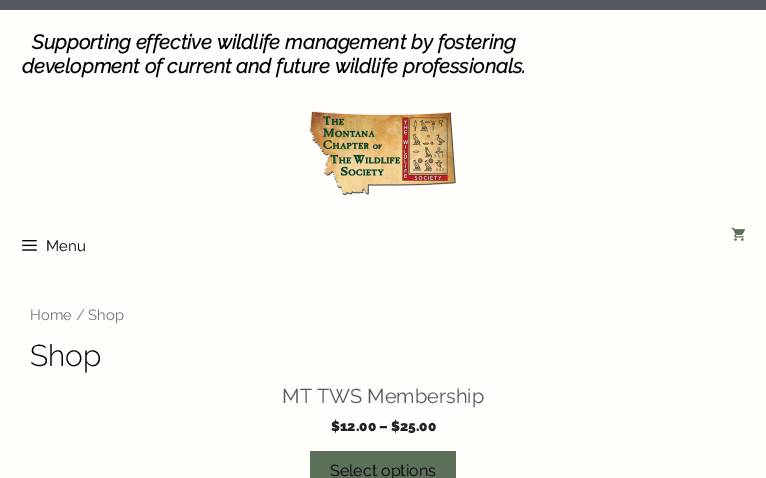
%!PS-Adobe-3.0
%%BoundingBox: 0 0 766 478
%%LanguageLevel: 3
%%Pages: 1
%%EndComments
%%BeginProlog
/drawimage { 5 dict begin { /h /w /y /x /name } { exch def } forall
  gsave x y translate w h scale
  w h 8 [w 0 0 h 0 0] name (r) file false 3 colorimage grestore end } def
%%EndProlog
%%BeginSetup
<< /PageSize [766 478] >> setpagedevice
%%EndSetup
%%Page: 1 1
0 478 translate 1 -1 scale
4 setmiterlimit
1 0.996 0.984 setrgbcolor
0 0 766 478 rectfill
0.341 0.341 0.376 setrgbcolor
0 0 766 10 rectfill
(images/1.raw) 309 111 147 85 drawimage
(images/2.raw) 731 227 14 14 drawimage
(images/3.raw) 22 240 15 11 drawimage
0.357 0.435 0.349 setrgbcolor
310 451 146 27 rectfill
/Raleway-BoldItalic [20 0 0 -20 0 0] selectfont
0.016 setgray
32 49 moveto (Supporting effective wildlife management by fostering) show
22 73 moveto (development of current and future wildlife professionals.) show
/Raleway-Regular [15 0 0 -15 0 0] selectfont
46 251 moveto (Menu) show
/Raleway-Regular [14.75 0 0 -14.75 0 0] selectfont
0.463 setgray
30 320 moveto (Home / Shop) show
/Raleway-Light [30 0 0 -30 0 0] selectfont
0.016 setgray
30 366 moveto (Shop) show
/Raleway-Regular [20 0 0 -20 0 0] selectfont
0.341 0.341 0.376 setrgbcolor
282 403 moveto (MT TWS Membership) show
/Raleway-Black [13.75 0 0 -13.75 0 0] selectfont
0.133 setgray
331 431 moveto ($12.00 – $25.00) show
/Raleway-Regular [16 0 0 -16 0 0] selectfont
0.016 setgray
330 476 moveto (Select options) show
showpage
%%EOF
